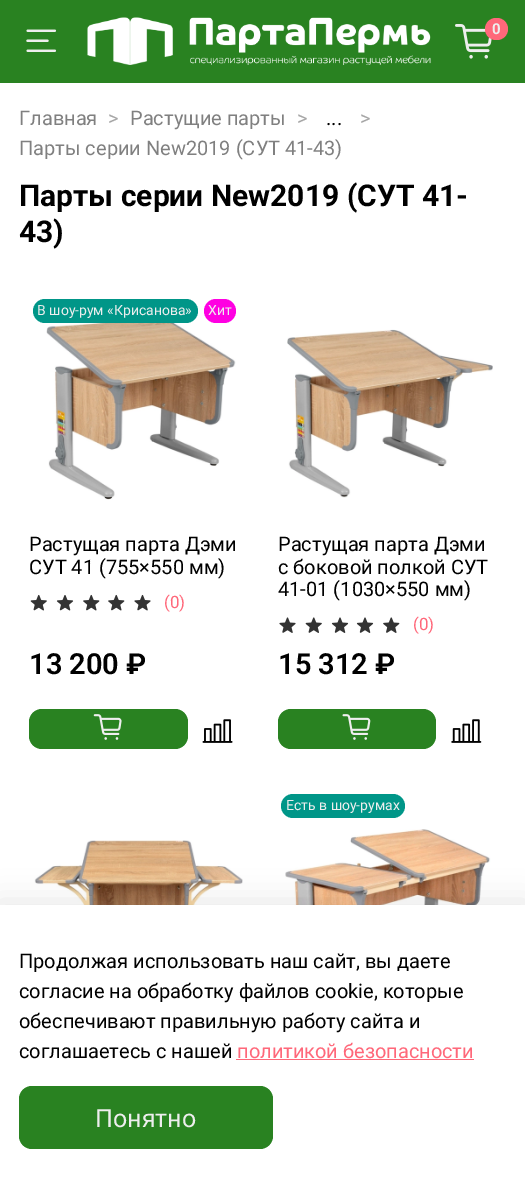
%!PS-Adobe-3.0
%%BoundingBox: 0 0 525 1191
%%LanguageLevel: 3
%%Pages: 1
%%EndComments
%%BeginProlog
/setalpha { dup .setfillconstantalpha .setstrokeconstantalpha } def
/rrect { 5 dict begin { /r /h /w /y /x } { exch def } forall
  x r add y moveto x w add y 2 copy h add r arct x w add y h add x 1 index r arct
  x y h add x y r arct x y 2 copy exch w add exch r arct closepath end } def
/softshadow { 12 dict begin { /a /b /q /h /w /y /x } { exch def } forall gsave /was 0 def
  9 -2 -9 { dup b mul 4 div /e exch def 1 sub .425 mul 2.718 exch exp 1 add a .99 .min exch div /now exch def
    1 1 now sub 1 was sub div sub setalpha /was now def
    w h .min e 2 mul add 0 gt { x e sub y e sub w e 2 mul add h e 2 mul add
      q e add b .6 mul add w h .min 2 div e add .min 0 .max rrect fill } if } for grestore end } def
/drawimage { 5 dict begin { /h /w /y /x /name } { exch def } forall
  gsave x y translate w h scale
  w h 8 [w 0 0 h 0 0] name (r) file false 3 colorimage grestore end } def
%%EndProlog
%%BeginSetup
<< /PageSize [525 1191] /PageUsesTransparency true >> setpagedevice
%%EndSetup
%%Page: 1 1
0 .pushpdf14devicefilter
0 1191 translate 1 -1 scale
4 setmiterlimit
1 setgray
0 0 525 1191 rectfill
0.161 0.51 0.129 setrgbcolor
0 0 525 83 rectfill
(images/1.raw) 26 29 31 23 drawimage
(images/2.raw) 87 17 344 48 drawimage
(images/3.raw) 455 24 37 35 drawimage
1 0.408 0.478 setrgbcolor
485 18 23 22 11 rrect fill
(images/4.raw) 46 317 190 183 drawimage
0 0.588 0.533 setrgbcolor
33 299 165 24 12 rrect fill
1 0 0.886 setrgbcolor
204 299 32 24 12 rrect fill
(images/5.raw) 30 594 17 17 drawimage
(images/6.raw) 56 595 18 16 drawimage
(images/7.raw) 83 594 17 17 drawimage
(images/7.raw) 108 594 17 17 drawimage
(images/8.raw) 134 594 17 17 drawimage
0.161 0.51 0.129 setrgbcolor
29 709 159 40 13 rrect fill
(images/9.raw) 93 714 29 26 drawimage
(images/10.raw) 202 719 31 24 drawimage
(images/11.raw) 287 329 206 169 drawimage
(images/12.raw) 279 617 17 16 drawimage
(images/13.raw) 305 617 17 16 drawimage
(images/14.raw) 331 617 18 16 drawimage
(images/14.raw) 356 617 18 16 drawimage
(images/15.raw) 383 617 17 16 drawimage
278 709 158 40 13 rrect fill
(images/16.raw) 342 714 29 26 drawimage
(images/17.raw) 451 719 31 24 drawimage
0 0.588 0.533 setrgbcolor
281 794 124 24 12 rrect fill
(images/18.raw) 285 829 206 76 drawimage
(images/19.raw) 34 840 209 65 drawimage
0 setgray
-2 901 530 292 0 14.5 0.09 softshadow
1 setgray
0 905 525 286 rectfill
1 0.408 0.478 setrgbcolor
236 1059 238 1 rectfill
0.161 0.51 0.129 setrgbcolor
19 1086 254 63 13 rrect fill
/Roboto-Bold [15 0 0 -15 0 0] selectfont
0.933 setgray
492 34 moveto (0) show
/Roboto-Regular [20 0 0 -20 0 0] selectfont
0.502 setgray
19 125 moveto (Главная) show
0.651 setgray
108 125 moveto (>) show
0.502 setgray
130 125 moveto (Растущие парты) show
0.651 setgray
297 125 moveto (>) show
0 setgray
326 125 moveto (...) show
0.651 setgray
360 125 moveto (>) show
0.502 setgray
19 155 moveto (Парты серии New2019 \(СУТ 41-43\)) show
/Roboto-Bold [30 0 0 -30 0 0] selectfont
0 setgray
19 206 moveto (Парты серии New2019 \(СУТ 41-) show
19 242 moveto (43\)) show
/Roboto-Regular [14 0 0 -14 0 0] selectfont
0.933 setgray
37 315 moveto (В шоу-рум «Крисанова») show
208 315 moveto (Хит) show
/Roboto-Regular [20 0 0 -20 0 0] selectfont
0 setgray
29 551 moveto (Растущая парта Дэми) show
29 574 moveto (СУТ 41 \(755×550 мм\)) show
/Roboto-Regular [17 0 0 -17 0 0] selectfont
1 0.408 0.478 setrgbcolor
164 608 moveto (\(0\)) show
/Roboto-SemiBold [29 0 0 -29 0 0] selectfont
0 setgray
29 674 moveto (13 200 ₽) show
/Roboto-Regular [20 0 0 -20 0 0] selectfont
278 551 moveto (Растущая парта Дэми) show
278 574 moveto (с боковой полкой СУТ) show
278 596 moveto (41-01 \(1030×550 мм\)) show
/Roboto-Regular [17 0 0 -17 0 0] selectfont
1 0.408 0.478 setrgbcolor
413 630 moveto (\(0\)) show
/Roboto-SemiBold [29 0 0 -29 0 0] selectfont
0 setgray
278 674 moveto (15 312 ₽) show
/Roboto-Regular [14 0 0 -14 0 0] selectfont
0.933 setgray
286 810 moveto (Есть в шоу-румах) show
/Roboto-Regular [20 0 0 -20 0 0] selectfont
0 setgray
19 968 moveto (Продолжая использовать наш сайт, вы даете) show
19 998 moveto (согласие на обработку файлов cookie, которые) show
19 1028 moveto (обеспечивают правильную работу сайта и) show
19 1058 moveto (соглашаетесь с нашей) show
1 0.408 0.478 setrgbcolor
237 1058 moveto (политикой безопасности) show
/Roboto-Regular [25 0 0 -25 0 0] selectfont
0.933 setgray
95 1127 moveto (Понятно) show
.poppdf14devicefilter showpage
%%EOF
